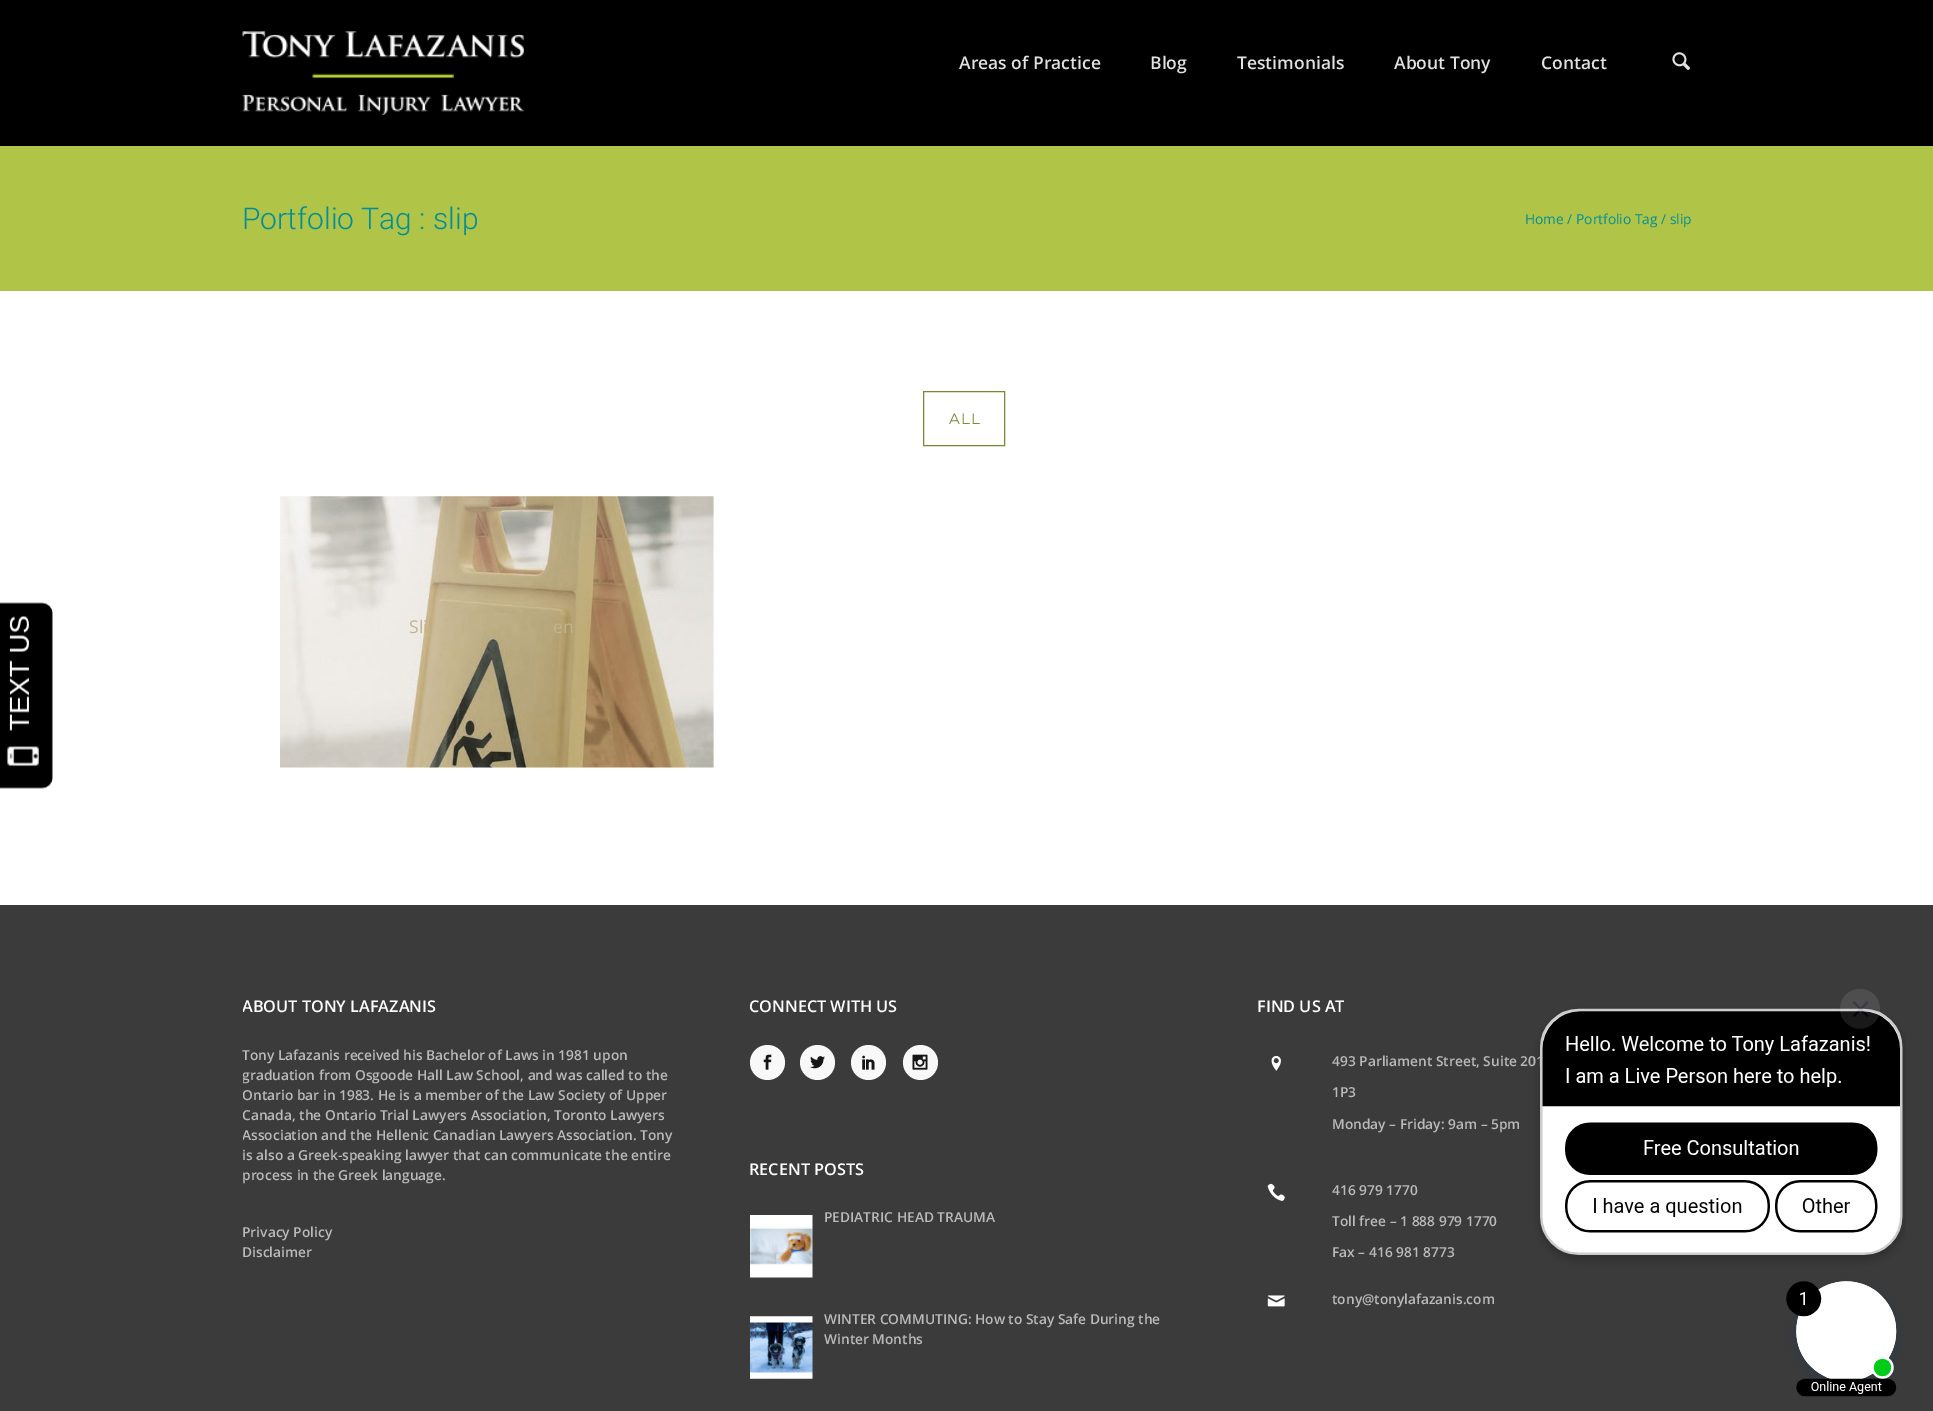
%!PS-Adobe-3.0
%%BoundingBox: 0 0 1933 1411
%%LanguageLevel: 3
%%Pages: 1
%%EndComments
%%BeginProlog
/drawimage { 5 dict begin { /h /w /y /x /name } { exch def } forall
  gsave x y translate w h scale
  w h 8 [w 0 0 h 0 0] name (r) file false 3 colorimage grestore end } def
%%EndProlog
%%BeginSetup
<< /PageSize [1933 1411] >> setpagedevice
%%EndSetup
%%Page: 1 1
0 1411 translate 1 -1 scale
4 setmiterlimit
0 setgray
0 0 1933 1411 rectfill
1 setgray
0 291 1933 614 rectfill
(images/1.raw) 0 602 53 187 drawimage
(images/2.raw) 242 31 282 84 drawimage
(images/3.raw) 1672 52 19 18 drawimage
0.69 0.769 0.278 setrgbcolor
0 146 1933 145 rectfill
0.482 0.537 0.196 setrgbcolor
923.5 391.5 81 54 rectstroke
(images/4.raw) 280 496 434 272 drawimage
0.231 setgray
0 905 1933 506 rectfill
0.973 0.973 0.976 setrgbcolor
newpath 767.5 1062.5 17.5 0 360 arc closepath fill
(images/5.raw) 763 1054 9 16 drawimage
newpath 817.5 1062.5 17.5 0 360 arc closepath fill
(images/6.raw) 810 1056 15 13 drawimage
newpath 868.5 1062.5 17.5 0 360 arc closepath fill
(images/7.raw) 862 1055 13 15 drawimage
newpath 920.5 1062.5 17.5 0 360 arc closepath fill
(images/8.raw) 912 1054 16 16 drawimage
(images/9.raw) 750 1215 63 63 drawimage
(images/10.raw) 750 1316 63 63 drawimage
(images/11.raw) 1271 1055 10 16 drawimage
(images/12.raw) 1267 1183 18 18 drawimage
(images/13.raw) 1267 1295 18 12 drawimage
/OpenSans-SemiBold [17.5 0 0 -17.5 0 0] selectfont
0.878 setgray
959 69 moveto (Areas of Practice) show
1150 69 moveto (Blog) show
1237 69 moveto (Testimonials) show
1394 69 moveto (About Tony) show
1541 69 moveto (Contact) show
/Roboto-Light [30 0 0 -30 0 0] selectfont
0.004 0.557 0.6 setrgbcolor
242 229 moveto (Portfolio Tag : slip) show
/OpenSans-Regular [13.75 0 0 -13.75 0 0] selectfont
1525 224 moveto (Home / Portfolio Tag / slip) show
/Montserrat-Regular [15 0 0 -15 0 0] selectfont
0.482 0.537 0.196 setrgbcolor
949 424 moveto 1 0 (ALL) ashow
/OpenSans-Regular [17.5 0 0 -17.5 0 0] selectfont
0.765 0.706 0.553 setrgbcolor
409 633 moveto (Sli) show
553 633 moveto (en) show
gsave
243 993 435 270 rectclip
/OpenSans-SemiBold [16.25 0 0 -16.25 0 0] selectfont
1 setgray
242 1012 moveto (ABOUT TONY LAFAZANIS) show
grestore
/OpenSans-SemiBold [13.75 0 0 -13.75 0 0] selectfont
0.729 setgray
242 1060 moveto (Tony Lafazanis received his Bachelor of Laws in 1981 upon) show
gsave
243 993 435 270 rectclip
242 1080 moveto (graduation from Osgoode Hall Law School, and was called to the) show
242 1100 moveto (Ontario bar in 1983. He is a member of the Law Society of Upper) show
242 1120 moveto (Canada, the Ontario Trial Lawyers Association, Toronto Lawyers) show
242 1140 moveto (Association and the Hellenic Canadian Lawyers Association. Tony) show
grestore
242 1160 moveto (is also a Greek-speaking lawyer that can communicate the entire) show
242 1180 moveto (process in the Greek language.) show
242 1237 moveto (Privacy Policy) show
242 1257 moveto (Disclaimer) show
/OpenSans-SemiBold [16.25 0 0 -16.25 0 0] selectfont
1 setgray
749 1012 moveto (CONNECT WITH US) show
749 1175 moveto (RECENT POSTS) show
/OpenSans-SemiBold [13.75 0 0 -13.75 0 0] selectfont
0.729 setgray
824 1222 moveto (PEDIATRIC HEAD TRAUMA) show
824 1324 moveto (WINTER COMMUTING: How to Stay Safe During the) show
824 1344 moveto (Winter Months) show
/OpenSans-SemiBold [16.25 0 0 -16.25 0 0] selectfont
1 setgray
1257 1012 moveto (FIND US AT) show
/OpenSans-SemiBold [13.75 0 0 -13.75 0 0] selectfont
0.729 setgray
1332 1066 moveto (493 Parliament Street, Suite 20) show
1332 1097 moveto (1P3) show
1332 1129 moveto (Monday – Friday: 9am – 5pm) show
1332 1195 moveto (416 979 1770) show
1332 1226 moveto (Toll free – 1 888 979 1770) show
1332 1257 moveto (Fax – 416 981 8773) show
1332 1304 moveto (tony@tonylafazanis.com) show
(images/14.raw) 1534 989 372 408 drawimage
showpage
%%EOF
